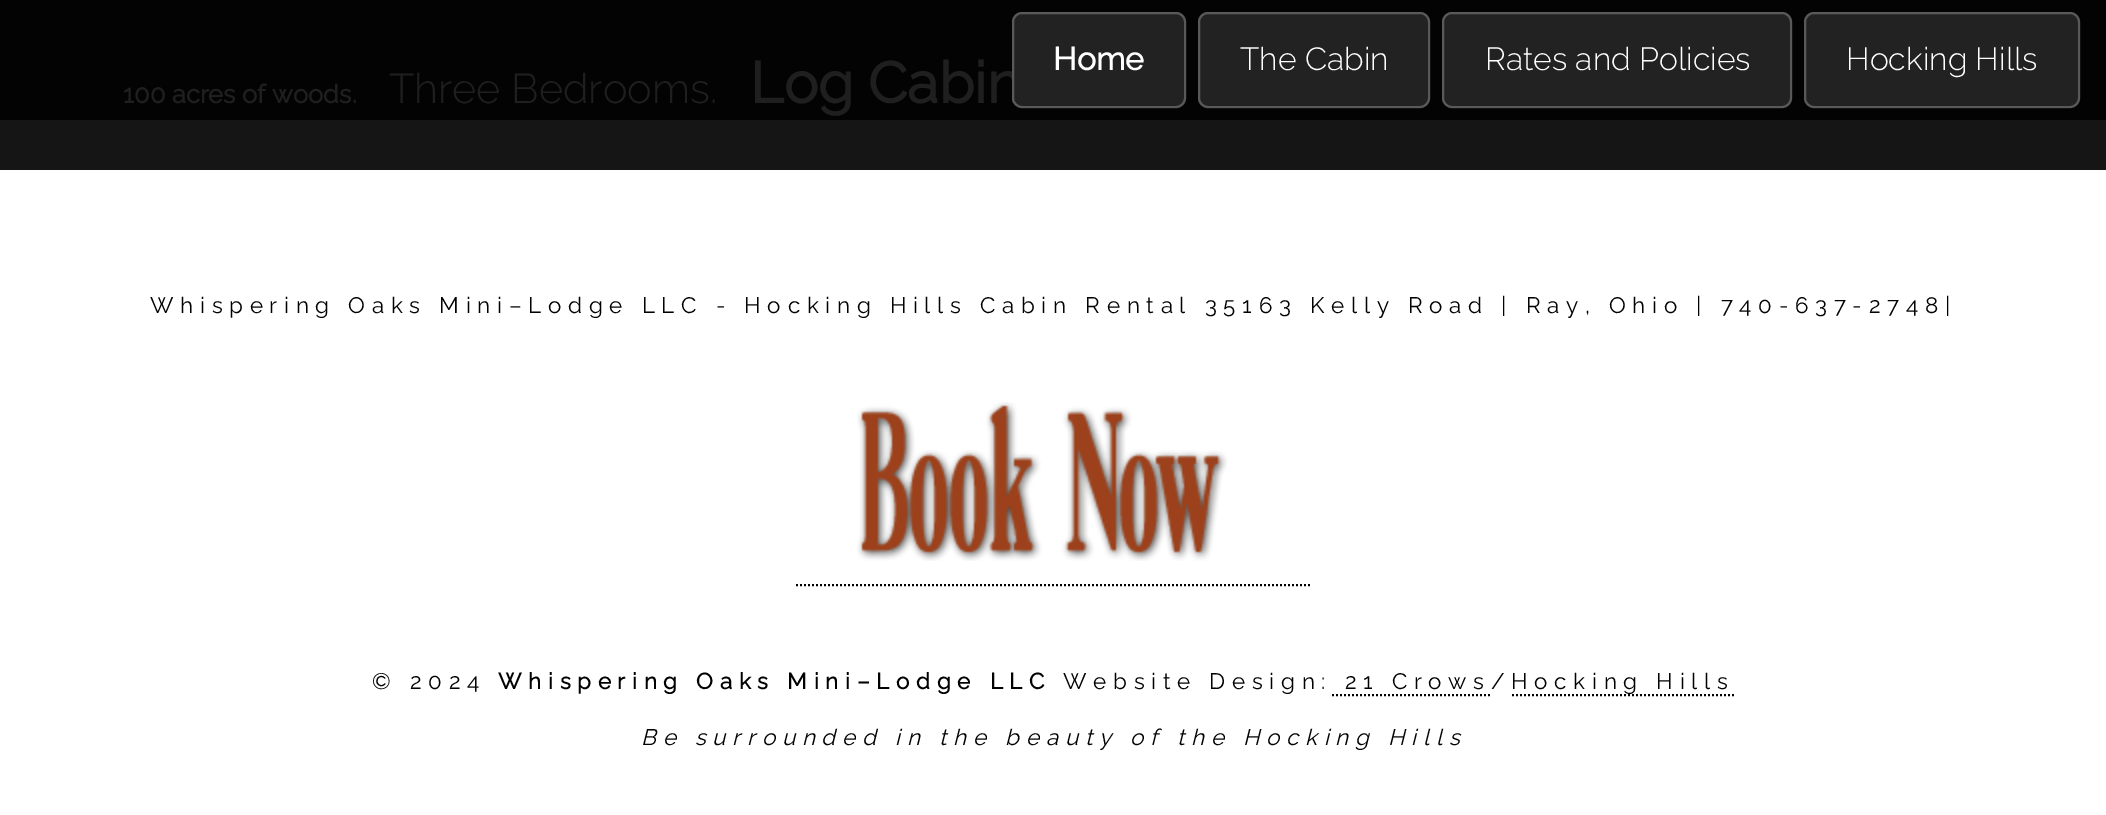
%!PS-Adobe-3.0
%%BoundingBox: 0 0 2106 815
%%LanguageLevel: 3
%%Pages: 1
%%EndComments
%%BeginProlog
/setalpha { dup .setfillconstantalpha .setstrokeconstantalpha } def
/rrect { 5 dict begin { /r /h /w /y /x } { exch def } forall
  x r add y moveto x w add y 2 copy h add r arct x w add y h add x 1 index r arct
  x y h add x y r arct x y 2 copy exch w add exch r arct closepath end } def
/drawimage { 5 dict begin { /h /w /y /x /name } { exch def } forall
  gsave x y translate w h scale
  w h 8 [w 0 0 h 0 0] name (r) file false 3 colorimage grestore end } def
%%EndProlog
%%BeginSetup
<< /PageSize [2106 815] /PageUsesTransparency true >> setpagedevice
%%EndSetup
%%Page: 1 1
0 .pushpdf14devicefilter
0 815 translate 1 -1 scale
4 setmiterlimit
1 setgray
0 0 2106 815 rectfill
0.082 setgray
0 120 2106 50 rectfill
0.012 setgray
0 0 2106 120 rectfill
0.133 setgray
1198 12 232 96 10 rrect fill
0.25 setalpha
1 setgray
2 setlinewidth
1199 13 230 94 9 rrect stroke
1 setalpha
0.133 setgray
1442 12 350 96 10 rrect fill
0.25 setalpha
1 setgray
1443 13 348 94 9 rrect stroke
1 setalpha
0.133 setgray
1804 12 276 96 10 rrect fill
0.25 setalpha
1 setgray
1805 13 274 94 9 rrect stroke
1 setalpha
(images/1.raw) 857 402 370 159 drawimage
0 setgray
[2 2] 0 setdash
newpath 796 585 moveto 1310 585 lineto stroke
newpath 1332 695 moveto 1492 695 lineto stroke
newpath 1512 695 moveto 1734 695 lineto stroke
/Raleway-Bold [25.5 0 0 -25.5 0 0] selectfont
0.122 setgray
123 103 moveto (100 acres of woods.) show
/Raleway-Light [41.5 0 0 -41.5 0 0] selectfont
389 103 moveto (Three Bedrooms.) show
/Raleway-Bold [57.5 0 0 -57.5 0 0] selectfont
750 103 moveto (Log Cabin) show
0.133 setgray
1012 12 174 96 10 rrect fill
0.25 setalpha
1 setgray
[] 0 setdash
1013 13 172 94 9 rrect stroke
/Raleway-Bold [32 0 0 -32 0 0] selectfont
1 setalpha
1053 70 moveto (Home) show
/Raleway-Light [32 0 0 -32 0 0] selectfont
1240 70 moveto (The Cabin) show
1485 70 moveto (Rates and Policies) show
1846 70 moveto (Hocking Hills) show
/Raleway-Regular [22.4 0 0 -22.4 0 0] selectfont
0 setgray
150 313 moveto 6.72 0 (Whispering Oaks Mini–Lodge LLC - Hocking Hills Cabin Rental 35163 Kelly Road | Ray, Ohio | 740-637-2748|) ashow
372 689 moveto 6.72 0 (© 2024) ashow
/Raleway-Bold [22.4 0 0 -22.4 0 0] selectfont
498 689 moveto 6.72 0 (Whispering Oaks Mini–Lodge LLC) ashow
/Raleway-Regular [22.4 0 0 -22.4 0 0] selectfont
1063 689 moveto 6.72 0 (Website Design: 21 Crows/Hocking Hills) ashow
/Raleway-Italic [22.4 0 0 -22.4 0 0] selectfont
641 745 moveto 6.72 0 (Be surrounded in the beauty of the Hocking Hills) ashow
.poppdf14devicefilter showpage
%%EOF
